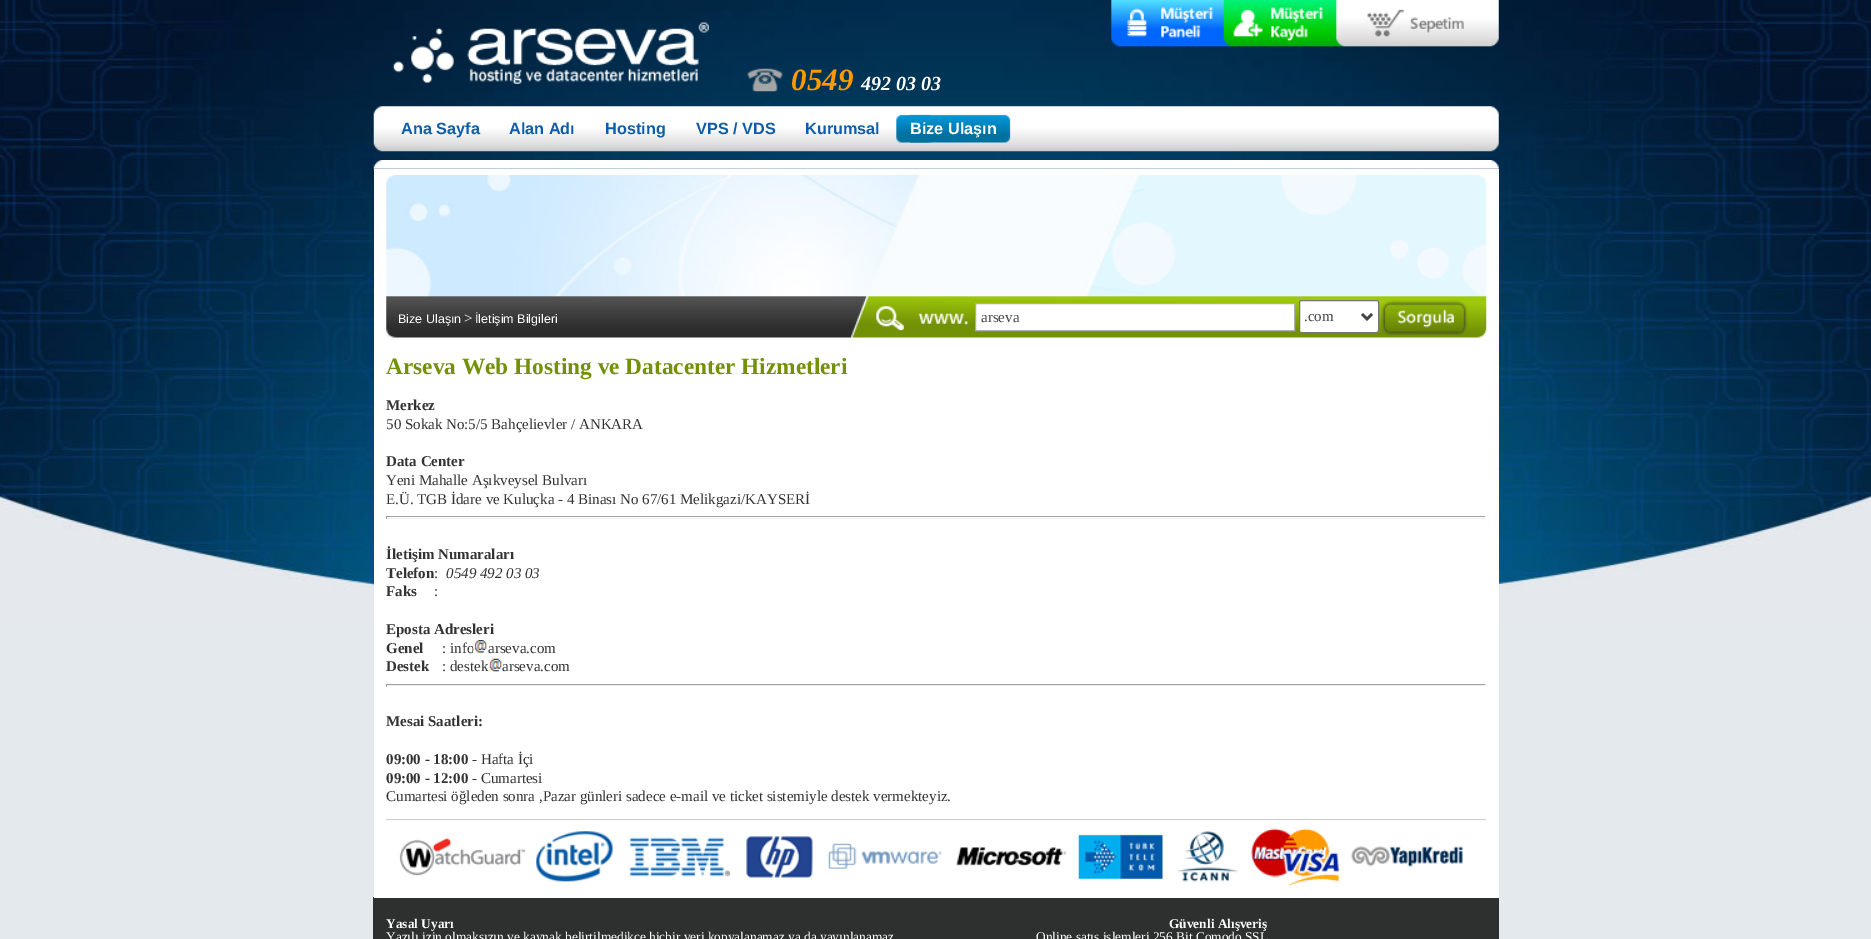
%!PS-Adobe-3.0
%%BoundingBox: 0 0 1871 939
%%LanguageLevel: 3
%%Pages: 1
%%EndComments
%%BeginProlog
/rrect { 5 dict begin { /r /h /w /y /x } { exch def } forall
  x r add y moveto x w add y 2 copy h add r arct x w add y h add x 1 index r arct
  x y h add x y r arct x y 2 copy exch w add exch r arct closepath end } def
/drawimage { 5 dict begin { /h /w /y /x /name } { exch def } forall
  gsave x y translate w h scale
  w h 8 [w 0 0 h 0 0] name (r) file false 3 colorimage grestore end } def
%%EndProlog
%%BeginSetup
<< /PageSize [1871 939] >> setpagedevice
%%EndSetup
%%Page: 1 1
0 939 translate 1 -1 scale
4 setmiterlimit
0.894 0.914 0.929 setrgbcolor
0 0 1871 939 rectfill
(images/1.raw) 0 0 1871 622 drawimage
(images/2.raw) 373 160 1126 9 drawimage
(images/3.raw) 393 22 316 62 drawimage
(images/4.raw) 747 68 36 24 drawimage
(images/5.raw) 1111 0 388 47 drawimage
(images/6.raw) 373 106 1126 46 drawimage
(images/7.raw) 896 114 36 29 drawimage
(images/8.raw) 910 114 101 29 drawimage
0.18 0.184 0.184 setrgbcolor
373 897 1126 42 rectfill
1 setgray
374 169 1125 729 rectfill
(images/9.raw) 386 175 1101 163 drawimage
newpath 975.5 303.5 moveto 1294.5 303.5 lineto 1294.5 330.5 lineto 975.5 330.5 lineto closepath gsave fill grestore
0.671 0.678 0.702 setrgbcolor
stroke
1 setgray
1299.5 300.5 79 32 2 rrect gsave fill grestore
0.463 setgray
stroke
0.267 setgray
2.5 setlinewidth
newpath 1362 314 moveto 1367 319 lineto 1372 314 lineto stroke
(images/10.raw) 1381 300 87 35 drawimage
0.624 setgray
386 516 1100 1 rectfill
0.933 setgray
1485 516 1 3 rectfill
386 518 1100 1 rectfill
0.624 setgray
386 516 1 3 rectfill
(images/12.raw) 489 658 14 14 drawimage
386 684 1100 1 rectfill
0.933 setgray
1485 684 1 3 rectfill
386 685 1100 1 rectfill
0.624 setgray
386 684 1 3 rectfill
0.8 setgray
386 819 1100 1 rectfill
(images/13.raw) 399 828 1064 57 drawimage
/LiberationSerif-BoldItalic [31 0 0 -31 0 0] selectfont
1 0.6 0 setrgbcolor
791 90 moveto (0549) show
/LiberationSerif-BoldItalic [20 0 0 -20 0 0] selectfont
1 setgray
861 90 moveto (492 03 03) show
/LiberationSans-Bold [16.25 0 0 -16.25 0 0] selectfont
0.055 0.365 0.667 setrgbcolor
401 134 moveto (Ana Sayfa) show
509 134 moveto (Alan Adı) show
605 134 moveto (Hosting) show
696 134 moveto (VPS / VDS) show
805 134 moveto (Kurumsal) show
1 setgray
910 134 moveto (Bize Ulaşın) show
/LiberationSans-Regular [12.5 0 0 -12.5 0 0] selectfont
398 323 moveto (Bize Ulaşın) show
/LiberationSerif-Regular [15 0 0 -15 0 0] selectfont
464 323 moveto (>) show
/LiberationSans-Regular [12.5 0 0 -12.5 0 0] selectfont
475 323 moveto (İletişim Bilgileri) show
/LiberationSerif-Regular [15 0 0 -15 0 0] selectfont
0.267 setgray
981 322 moveto (arseva) show
1304 321 moveto (.com) show
/LiberationSerif-Bold [23.3 0 0 -23.3 0 0] selectfont
0.447 0.569 0.024 setrgbcolor
386 374 moveto (Arseva Web Hosting ve Datacenter Hizmetleri) show
/LiberationSerif-Bold [15 0 0 -15 0 0] selectfont
0.2 setgray
386 410 moveto (Merkez) show
/LiberationSerif-Regular [15 0 0 -15 0 0] selectfont
386 429 moveto (50 Sokak No:5/5 Bahçelievler / ANKARA) show
/LiberationSerif-Bold [15 0 0 -15 0 0] selectfont
386 466 moveto (Data Center) show
/LiberationSerif-Regular [15 0 0 -15 0 0] selectfont
386 485 moveto (Yeni Mahalle Aşıkveysel Bulvarı) show
386 504 moveto (E.Ü. TGB İdare ve Kuluçka - 4 Binası No 67/61 Melikgazi/KAYSERİ) show
/LiberationSerif-Bold [15 0 0 -15 0 0] selectfont
386 559 moveto (İletişim Numaraları) show
386 578 moveto (Telefon) show
/LiberationSerif-Regular [15 0 0 -15 0 0] selectfont
434 578 moveto (:) show
/LiberationSerif-Italic [15 0 0 -15 0 0] selectfont
446 578 moveto (0549 492 03 03) show
/LiberationSerif-Bold [15 0 0 -15 0 0] selectfont
386 596 moveto (Faks) show
/LiberationSerif-Regular [15 0 0 -15 0 0] selectfont
434 596 moveto (:) show
/LiberationSerif-Bold [15 0 0 -15 0 0] selectfont
386 634 moveto (Eposta Adresleri) show
386 653 moveto (Genel) show
/LiberationSerif-Regular [15 0 0 -15 0 0] selectfont
442 653 moveto (: info) show
(images/11.raw) 473 640 15 13 drawimage
488 653 moveto (arseva.com) show
/LiberationSerif-Bold [15 0 0 -15 0 0] selectfont
386 671 moveto (Destek) show
/LiberationSerif-Regular [15 0 0 -15 0 0] selectfont
442 671 moveto (: destek) show
502 671 moveto (arseva.com) show
/LiberationSerif-Bold [15 0 0 -15 0 0] selectfont
386 726 moveto (Mesai Saatleri:) show
386 764 moveto (09:00 - 18:00) show
/LiberationSerif-Regular [15 0 0 -15 0 0] selectfont
472 764 moveto (- Hafta İçi) show
/LiberationSerif-Bold [15 0 0 -15 0 0] selectfont
386 783 moveto (09:00 - 12:00) show
/LiberationSerif-Regular [15 0 0 -15 0 0] selectfont
472 783 moveto (- Cumartesi) show
386 801 moveto (Cumartesi öğleden sonra ,Pazar günleri sadece e-mail ve ticket sistemiyle destek vermekteyiz.) show
/LiberationSerif-Bold [13.35 0 0 -13.35 0 0] selectfont
1 setgray
386 928 moveto (Yasal Uyarı) show
/LiberationSerif-Regular [13.35 0 0 -13.35 0 0] selectfont
386 941 moveto (Yazılı izin olmaksızın ve kaynak belirtilmedikçe hiçbir veri kopyalanamaz ya da yayınlanamaz) show
/LiberationSerif-Bold [13.35 0 0 -13.35 0 0] selectfont
1169 928 moveto (Güvenli Alışveriş) show
/LiberationSerif-Regular [13.35 0 0 -13.35 0 0] selectfont
1036 941 moveto (Online satış işlemleri 256 Bit Comodo SSL) show
showpage
%%EOF
